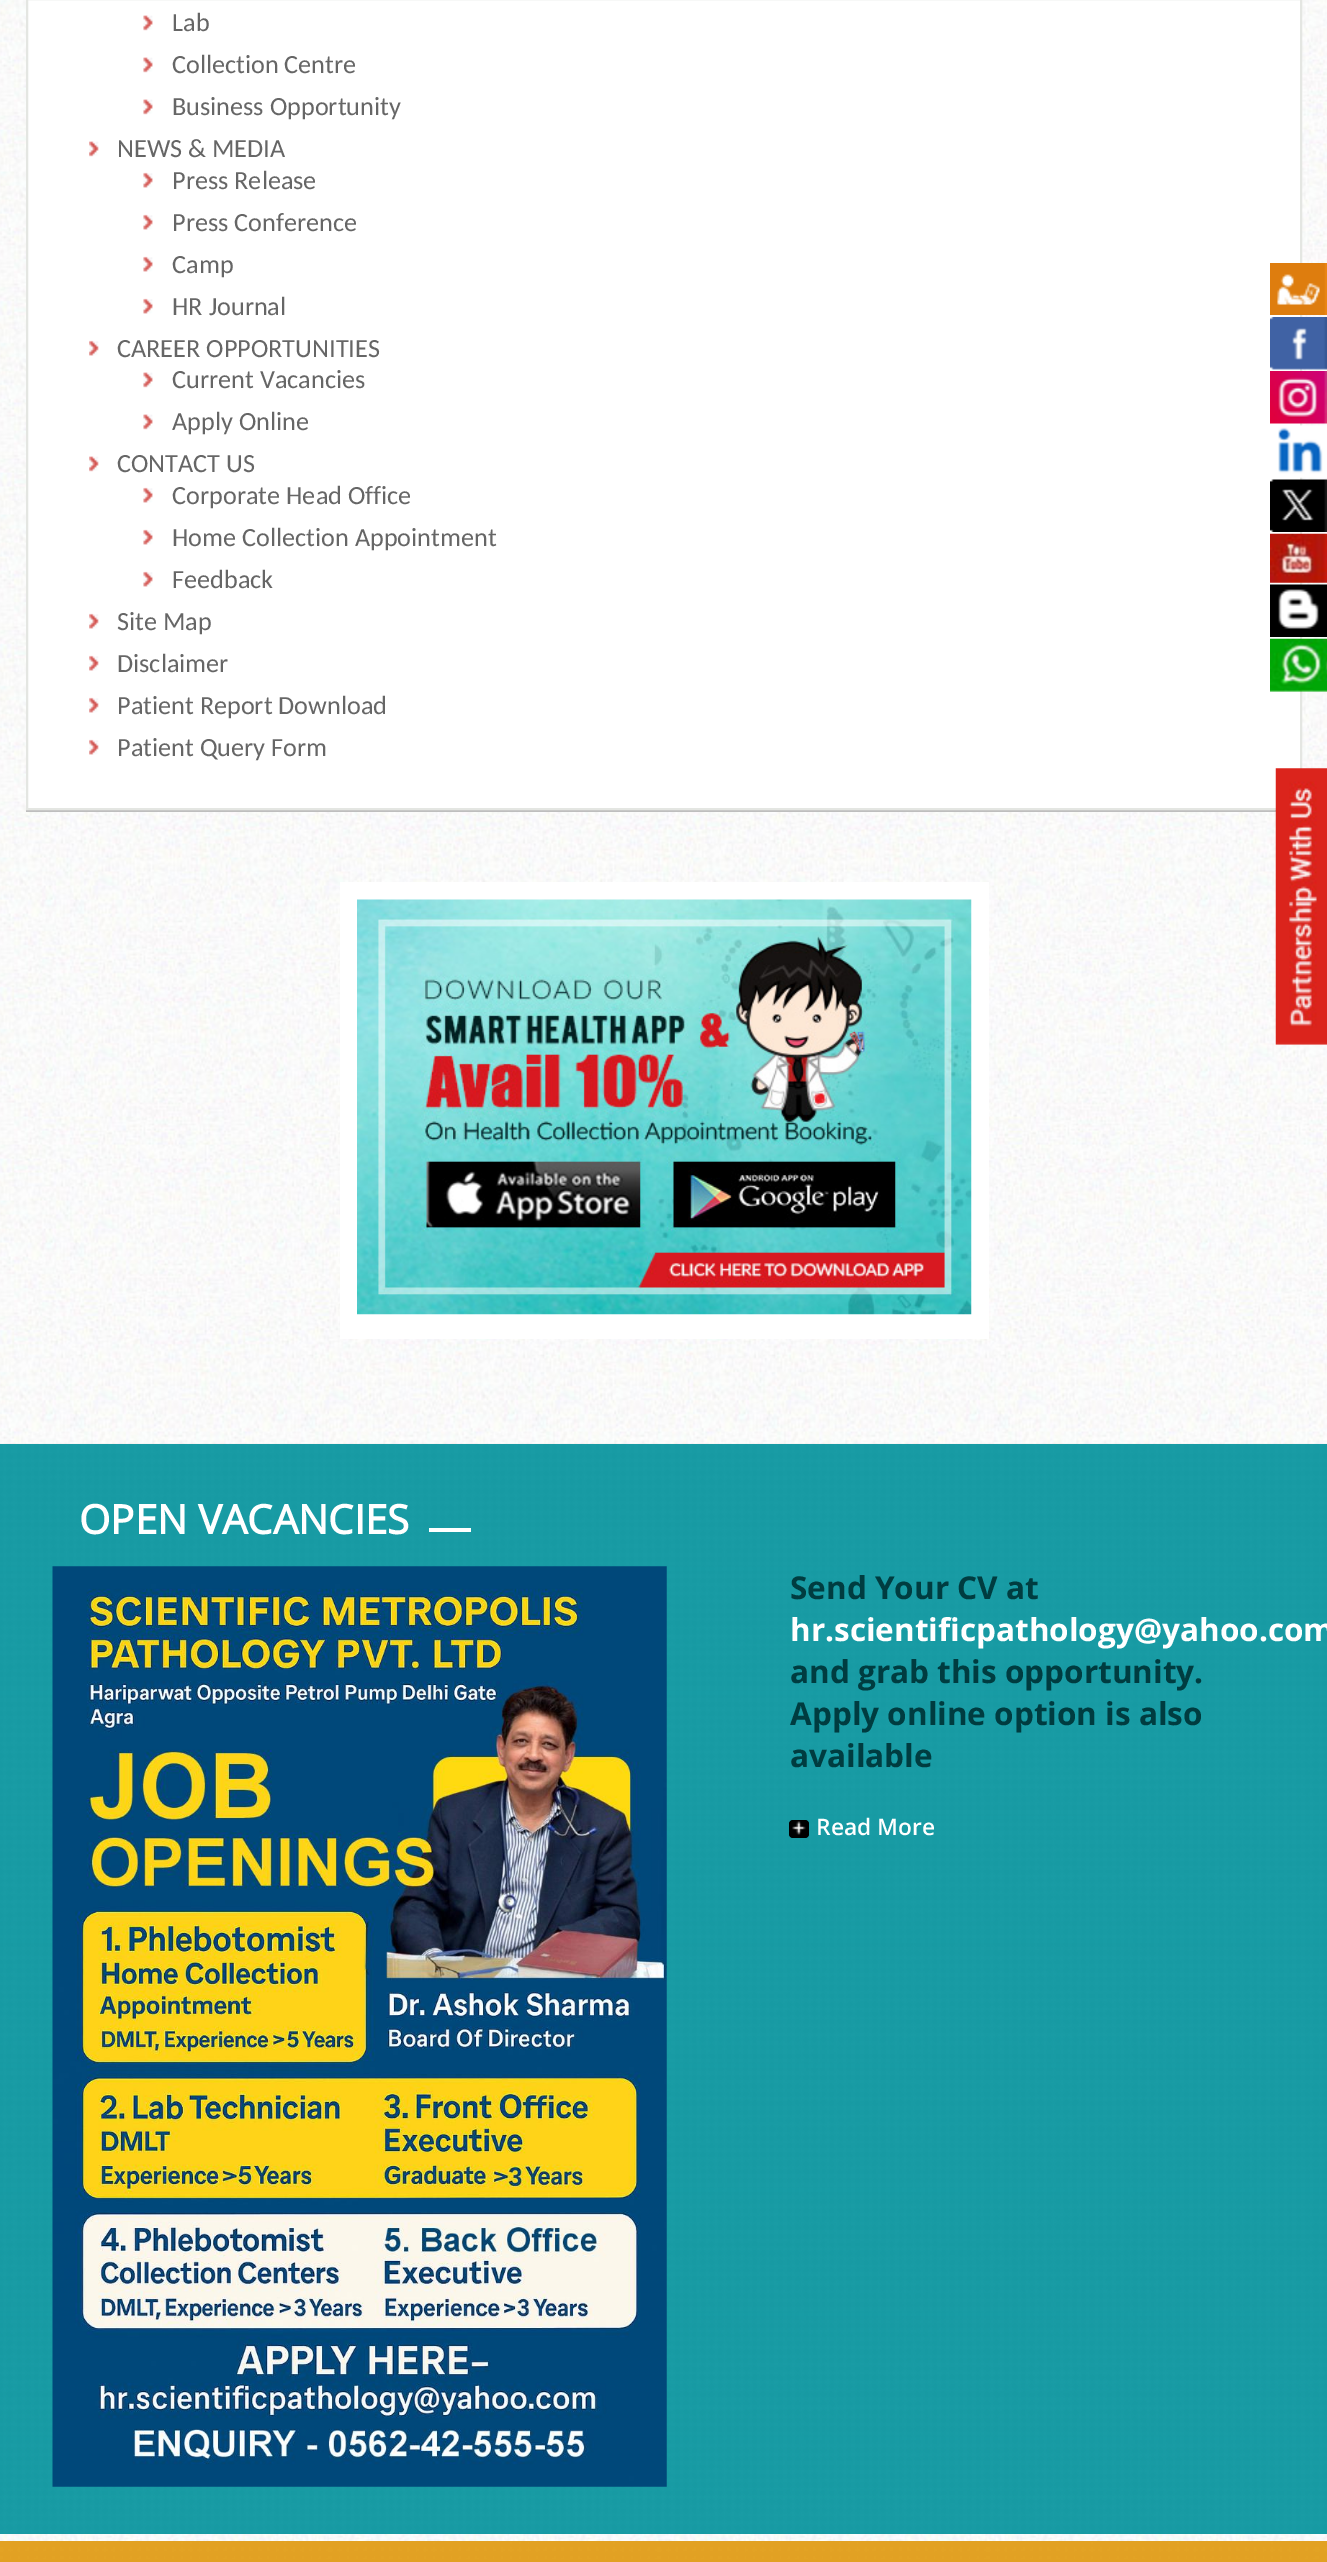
%!PS-Adobe-3.0
%%BoundingBox: 0 0 1327 2562
%%LanguageLevel: 3
%%Pages: 1
%%EndComments
%%BeginProlog
/rrect { 5 dict begin { /r /h /w /y /x } { exch def } forall
  x r add y moveto x w add y 2 copy h add r arct x w add y h add x 1 index r arct
  x y h add x y r arct x y 2 copy exch w add exch r arct closepath end } def
/drawimage { 5 dict begin { /h /w /y /x /name } { exch def } forall
  gsave x y translate w h scale
  w h 8 [w 0 0 h 0 0] name (r) file false 3 colorimage grestore end } def
%%EndProlog
%%BeginSetup
<< /PageSize [1327 2562] >> setpagedevice
%%EndSetup
%%Page: 1 1
0 2562 translate 1 -1 scale
4 setmiterlimit
1 setgray
0 0 1327 2562 rectfill
(images/1.raw) 0 0 1327 2541 drawimage
0.745 setgray
newpath 26 -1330 moveto 26 812 lineto 1302 812 lineto 1302 810 lineto 26 810 lineto closepath fill
1 setgray
newpath 27 -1 moveto 1301 -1 lineto 1301 809 lineto 27 809 lineto closepath gsave fill grestore
0.894 0.902 0.886 setrgbcolor
2 setlinewidth
stroke
(images/2.raw) 143 15 10 16 drawimage
(images/2.raw) 143 57 10 16 drawimage
(images/2.raw) 143 99 10 16 drawimage
(images/3.raw) 89 141 10 16 drawimage
(images/4.raw) 143 172 10 16 drawimage
(images/4.raw) 143 214 10 16 drawimage
(images/4.raw) 143 256 10 16 drawimage
(images/4.raw) 143 298 10 16 drawimage
(images/5.raw) 89 340 10 16 drawimage
(images/2.raw) 143 372 10 16 drawimage
(images/2.raw) 143 414 10 16 drawimage
(images/3.raw) 89 456 10 16 drawimage
(images/4.raw) 143 487 10 16 drawimage
(images/4.raw) 143 529 10 16 drawimage
(images/4.raw) 143 571 10 16 drawimage
(images/5.raw) 89 613 10 16 drawimage
(images/5.raw) 89 655 10 16 drawimage
(images/5.raw) 89 697 10 16 drawimage
(images/5.raw) 89 739 10 16 drawimage
1 setgray
340 882 649 457 rectfill
(images/6.raw) 357 899 615 416 drawimage
(images/7.raw) 1270 263 57 52 drawimage
(images/8.raw) 1270 317 57 53 drawimage
(images/9.raw) 1270 371 57 53 drawimage
(images/10.raw) 1278 425 49 53 drawimage
(images/11.raw) 1270 479 57 53 drawimage
(images/12.raw) 1270 533 57 50 drawimage
(images/13.raw) 1270 584 57 53 drawimage
(images/14.raw) 1270 638 57 54 drawimage
(images/15.raw) 1275 768 52 277 drawimage
0.078 0.651 0.69 setrgbcolor
0 1444 1327 1090 rectfill
(images/16.raw) 0 1443 1327 1091 drawimage
1 setgray
429 1528 42 4 rectfill
(images/17.raw) 52 1566 615 921 drawimage
0 setgray
789 1820 20 18 4 rrect fill
(images/18.raw) 792 1821 14 14 drawimage
0.914 0.651 0.133 setrgbcolor
0 2541 1327 21 rectfill
(images/19.raw) 0 2541 1327 21 drawimage
/Carlito-Regular [26.25 0 0 -26.25 0 0] selectfont
0.4 setgray
172 31 moveto (Lab) show
172 73 moveto (Collection Centre) show
172 115 moveto (Business Opportunity) show
117 157 moveto (NEWS & MEDIA) show
172 189 moveto (Press Release) show
172 231 moveto (Press Conference) show
172 273 moveto (Camp) show
172 315 moveto (HR Journal) show
117 357 moveto (CAREER OPPORTUNITIES) show
172 388 moveto (Current Vacancies) show
172 430 moveto (Apply Online) show
117 472 moveto (CONTACT US) show
172 504 moveto (Corporate Head Office) show
172 546 moveto (Home Collection Appointment) show
172 588 moveto (Feedback) show
117 630 moveto (Site Map) show
117 672 moveto (Disclaimer) show
117 714 moveto (Patient Report Download) show
117 756 moveto (Patient Query Form) show
/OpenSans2-Bold [40.25 0 0 -40.25 0 0] selectfont
1 setgray
79 1534 moveto (OPEN VACANCIES) show
/OpenSans-Bold [31.5 0 0 -31.5 0 0] selectfont
0 0.235 0.251 setrgbcolor
790 1599 moveto (Send Your CV at) show
1 setgray
790 1641 moveto (hr.scientificpathology@yahoo.com) show
0 0.235 0.251 setrgbcolor
790 1683 moveto (and grab this opportunity.) show
790 1725 moveto (Apply online option is also) show
790 1767 moveto (available) show
/OpenSans-SemiBold [22.75 0 0 -22.75 0 0] selectfont
1 setgray
816 1835 moveto (Read More) show
showpage
%%EOF
